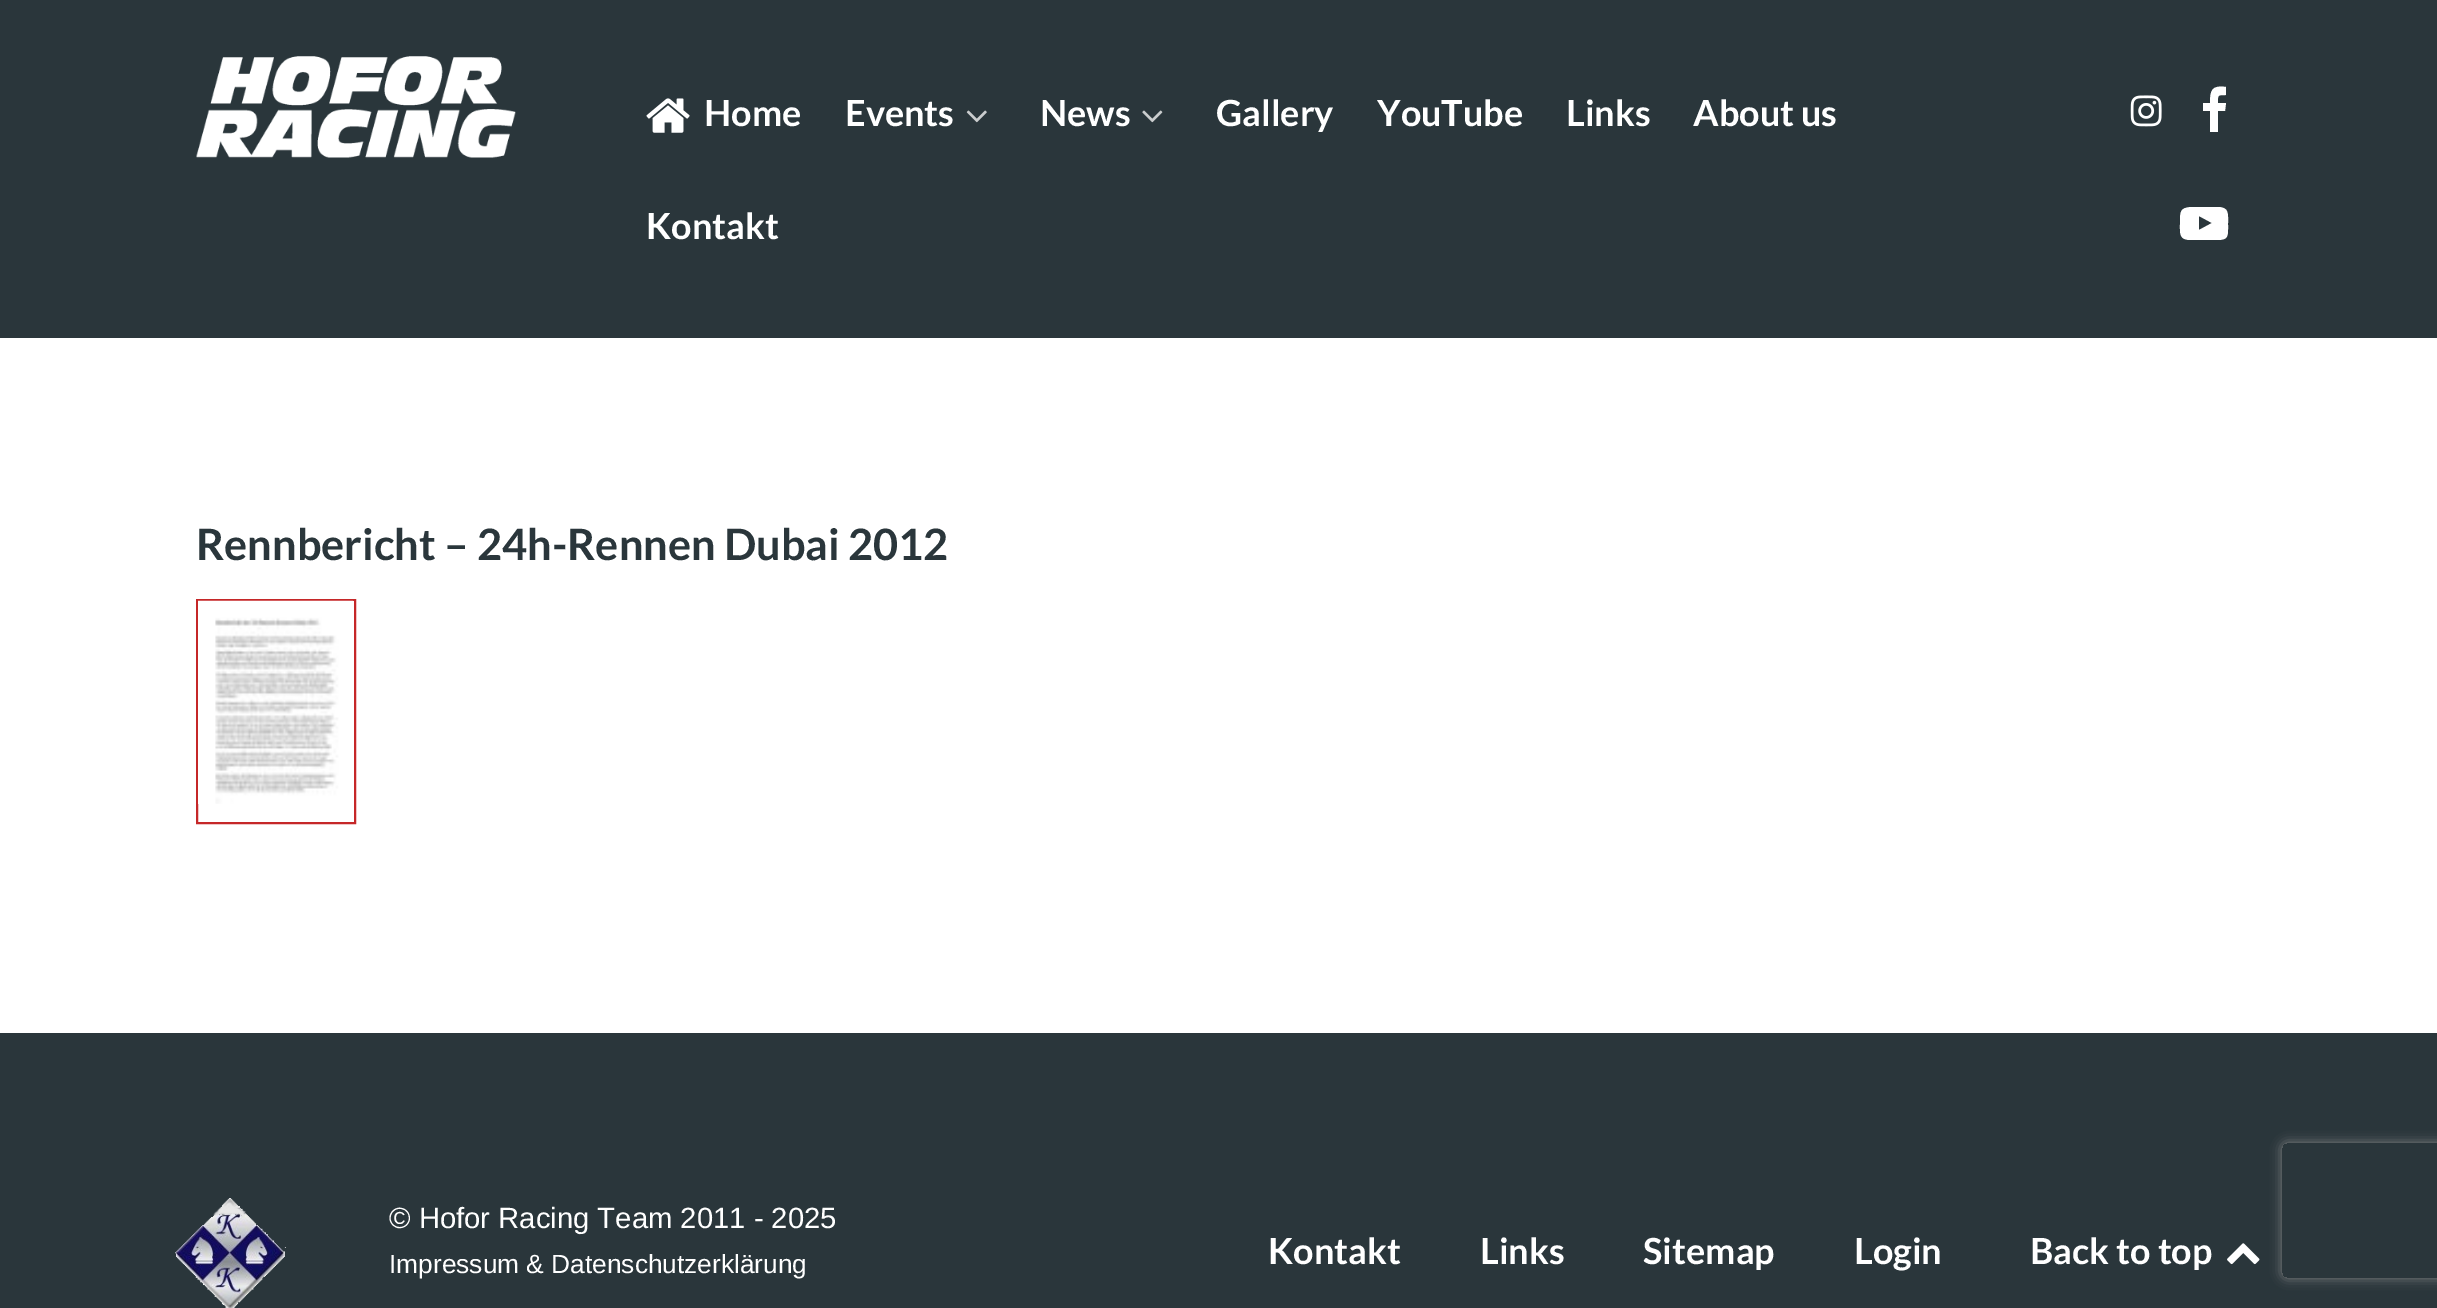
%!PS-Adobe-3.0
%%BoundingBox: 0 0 2437 1308
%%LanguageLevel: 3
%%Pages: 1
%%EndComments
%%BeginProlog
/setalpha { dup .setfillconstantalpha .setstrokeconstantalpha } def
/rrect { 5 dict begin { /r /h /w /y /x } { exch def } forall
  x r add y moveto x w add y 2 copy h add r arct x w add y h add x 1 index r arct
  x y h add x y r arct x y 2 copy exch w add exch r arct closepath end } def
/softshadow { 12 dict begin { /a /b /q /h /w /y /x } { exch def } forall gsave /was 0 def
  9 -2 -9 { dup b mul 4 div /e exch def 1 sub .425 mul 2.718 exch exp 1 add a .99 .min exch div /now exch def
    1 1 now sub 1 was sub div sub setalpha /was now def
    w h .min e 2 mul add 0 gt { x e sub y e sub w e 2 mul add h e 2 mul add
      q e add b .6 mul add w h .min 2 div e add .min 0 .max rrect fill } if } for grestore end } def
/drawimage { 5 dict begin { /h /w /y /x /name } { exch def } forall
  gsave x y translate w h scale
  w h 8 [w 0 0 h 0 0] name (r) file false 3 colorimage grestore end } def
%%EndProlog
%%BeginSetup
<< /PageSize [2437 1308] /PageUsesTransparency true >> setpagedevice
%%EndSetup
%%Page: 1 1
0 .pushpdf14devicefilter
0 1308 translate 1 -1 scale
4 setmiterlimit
1 setgray
0 0 2437 1308 rectfill
0.165 0.212 0.231 setrgbcolor
0 0 2437 338 rectfill
(images/1.raw) 196 56 320 102 drawimage
(images/2.raw) 646 98 44 35 drawimage
(images/3.raw) 966 110 21 13 drawimage
(images/4.raw) 1142 110 21 13 drawimage
(images/5.raw) 2130 95 32 32 drawimage
1 setgray
newpath 2226 87 moveto 2226 95 lineto 2217 95 2218 95 2218 103 curveto 2226 103 lineto 2225 111 lineto 2218 111 lineto 2218 132 lineto 2210 132 lineto 2210 111 lineto 2203 111 lineto 2203 103 lineto 2210 103 lineto 2210 90 2212 85 2226 87 curveto closepath fill
newpath 2199 230 moveto 2212 223 lineto 2199 216 lineto closepath 2204 207 moveto 2219 207 lineto 2229 208 2228 213 2228 224 curveto 2228 236 2229 240 2217 240 curveto 2191 240 lineto 2179 240 2180 234 2180 224 curveto 2180 211 2180 208 2191 207 curveto closepath fill
0.773 0.153 0.157 setrgbcolor
2 setlinewidth
197 600 158 223 rectstroke
(images/6.raw) 198 600 156 204 drawimage
0.165 0.212 0.231 setrgbcolor
0 1033 2437 275 rectfill
(images/7.raw) 175 1198 111 110 drawimage
(images/8.raw) 2227 1243 33 22 drawimage
gsave
newpath 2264 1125 moveto 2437 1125 lineto 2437 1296 lineto 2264 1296 lineto closepath 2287 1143 moveto 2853 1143 lineto 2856 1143 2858 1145 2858 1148 curveto 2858 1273 lineto 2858 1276 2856 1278 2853 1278 curveto 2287 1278 lineto 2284 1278 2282 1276 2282 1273 curveto 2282 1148 lineto 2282 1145 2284 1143 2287 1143 curveto closepath eoclip newpath
0.502 setgray
2282 1143 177 135 5 5.5 1 softshadow
grestore
/Lato-Bold [36 0 0 -36 0 0] selectfont
1 setgray
704 126 moveto (Home) show
845 126 moveto (Events) show
1040 126 moveto (News) show
1216 126 moveto (Gallery) show
1377 126 moveto (YouTube) show
1566 126 moveto (Links) show
1693 126 moveto (About us) show
646 239 moveto (Kontakt) show
/Lato-Bold [43.25 0 0 -43.25 0 0] selectfont
0.165 0.212 0.231 setrgbcolor
196 560 moveto (Rennbericht – 24h-Rennen Dubai 2012) show
/LiberationSans-Regular [29.25 0 0 -29.25 0 0] selectfont
1 setgray
389 1228 moveto (© Hofor Racing Team 2011 - 2025) show
/LiberationSans-Regular [26.3 0 0 -26.3 0 0] selectfont
389 1273 moveto (Impressum & Datenschutzerklärung) show
/Lato-Bold [36 0 0 -36 0 0] selectfont
1268 1264 moveto (Kontakt) show
1480 1264 moveto (Links) show
1643 1264 moveto (Sitemap) show
1854 1264 moveto (Login) show
2030 1264 moveto (Back to top) show
.poppdf14devicefilter showpage
%%EOF
